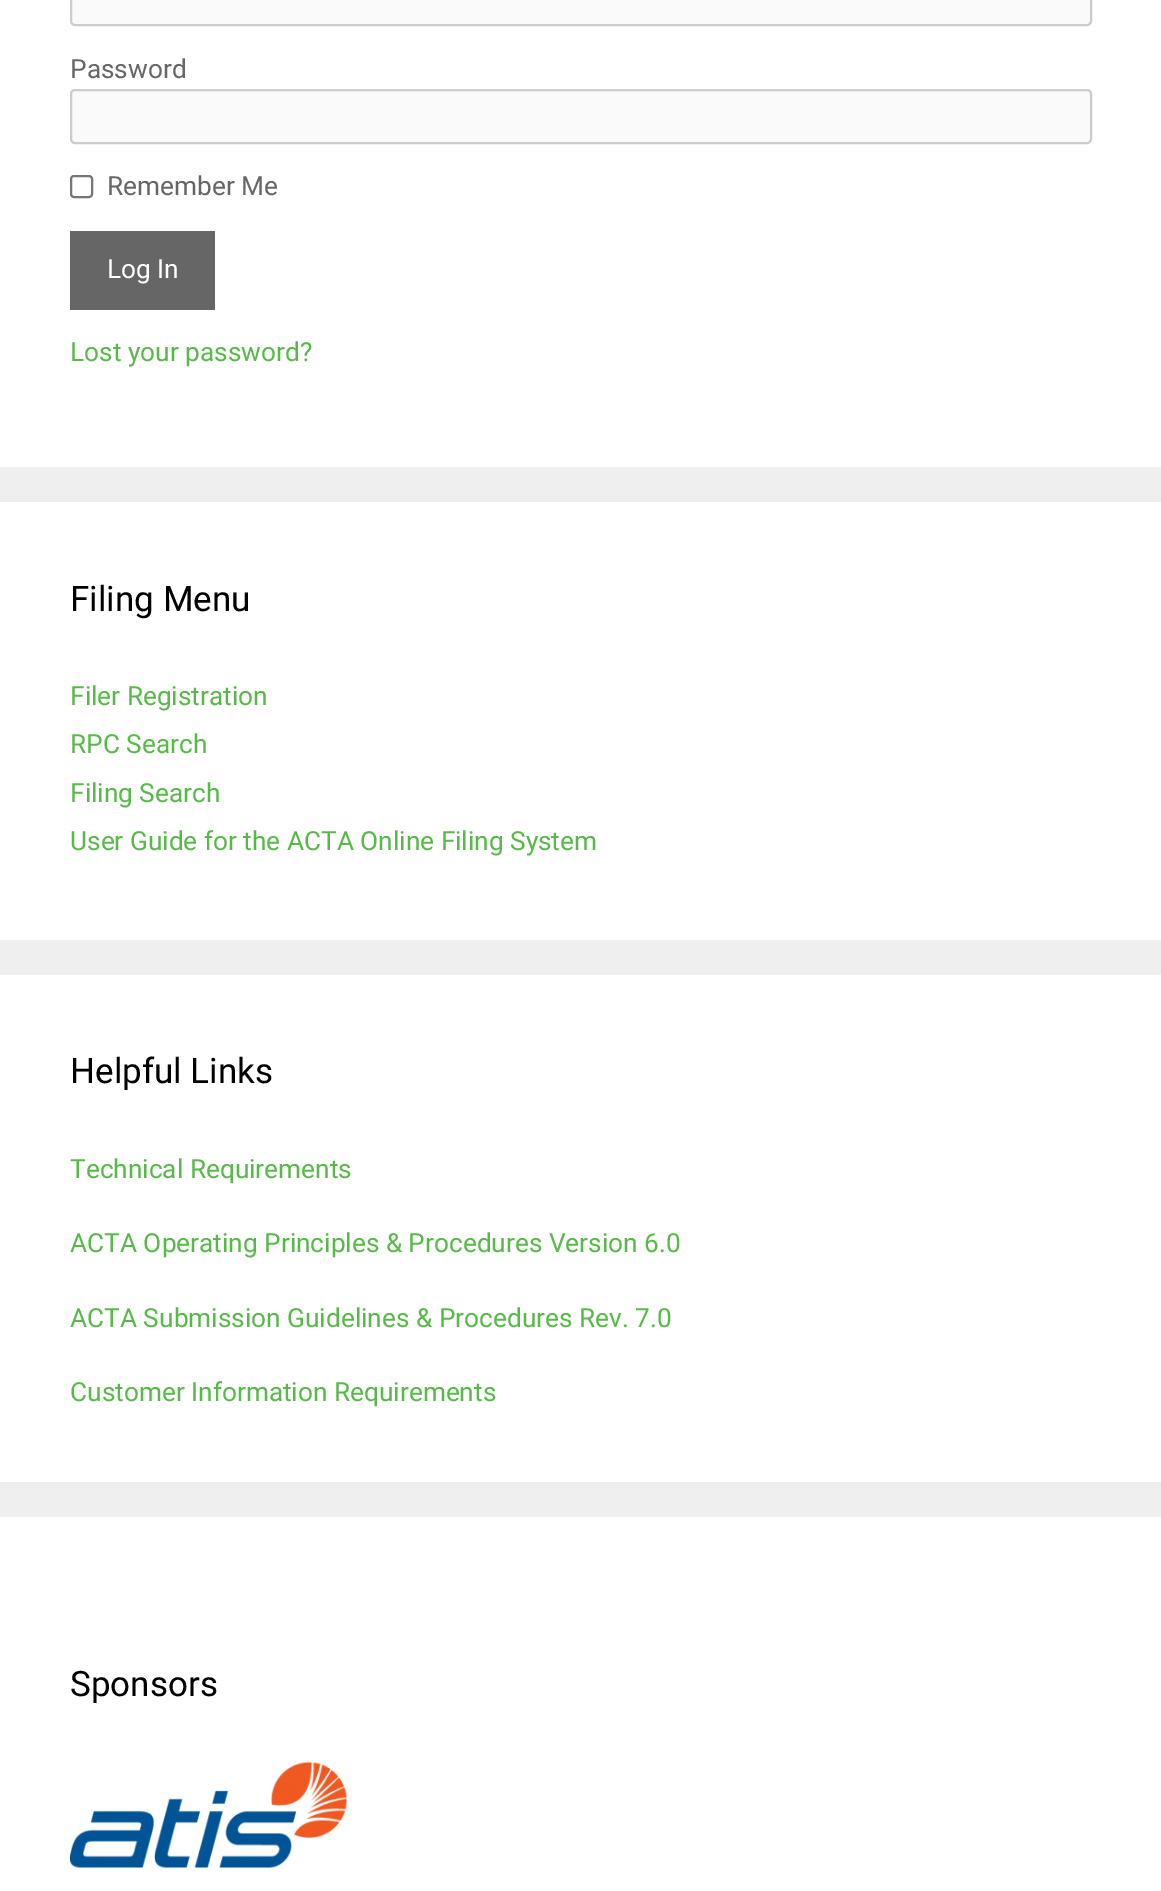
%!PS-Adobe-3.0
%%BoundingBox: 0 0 1161 1891
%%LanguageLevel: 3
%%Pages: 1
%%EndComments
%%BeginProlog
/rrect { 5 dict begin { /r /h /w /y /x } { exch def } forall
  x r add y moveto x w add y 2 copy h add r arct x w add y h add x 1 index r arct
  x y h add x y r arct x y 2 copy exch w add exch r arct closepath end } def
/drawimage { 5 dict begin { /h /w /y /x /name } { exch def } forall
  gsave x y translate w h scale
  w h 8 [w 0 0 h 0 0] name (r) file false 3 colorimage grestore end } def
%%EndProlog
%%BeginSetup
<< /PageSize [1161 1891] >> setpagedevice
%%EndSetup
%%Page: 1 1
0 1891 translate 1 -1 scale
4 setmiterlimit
0.937 setgray
0 0 1161 1891 rectfill
1 setgray
0 0 1161 467 rectfill
0.98 setgray
71 -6 1020 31 4 rrect gsave fill grestore
0.8 setgray
2 setlinewidth
stroke
0.98 setgray
71 90 1020 53 4 rrect gsave fill grestore
0.8 setgray
stroke
0.463 setgray
71 176 21 21 3 rrect stroke
0.4 setgray
70 231 145 79 rectfill
1 setgray
0 502 1161 438 rectfill
0 975 1161 507 rectfill
0 1517 1161 374 rectfill
(images/1.raw) 70 1762 277 106 drawimage
/Roboto-Regular [26.25 0 0 -26.25 0 0] selectfont
0.4 setgray
70 78 moveto (Password) show
107 195 moveto (Remember Me) show
1 setgray
107 278 moveto (Log In) show
0.341 0.725 0.282 setrgbcolor
70 361 moveto (Lost your password?) show
/Roboto-Regular [35 0 0 -35 0 0] selectfont
0 setgray
70 611 moveto (Filing Menu) show
/Roboto-Regular [26.25 0 0 -26.25 0 0] selectfont
0.341 0.725 0.282 setrgbcolor
70 705 moveto (Filer Registration) show
70 753 moveto (RPC Search) show
70 802 moveto (Filing Search) show
70 850 moveto (User Guide for the ACTA Online Filing System) show
/Roboto-Regular [35 0 0 -35 0 0] selectfont
0 setgray
70 1083 moveto (Helpful Links) show
/Roboto-Regular [26.25 0 0 -26.25 0 0] selectfont
0.341 0.725 0.282 setrgbcolor
70 1178 moveto (Technical Requirements) show
70 1252 moveto (ACTA Operating Principles & Procedures Version 6.0) show
70 1327 moveto (ACTA Submission Guidelines & Procedures Rev. 7.0) show
70 1401 moveto (Customer Information Requirements) show
/Roboto-Regular [35 0 0 -35 0 0] selectfont
0 setgray
70 1696 moveto (Sponsors) show
showpage
%%EOF
